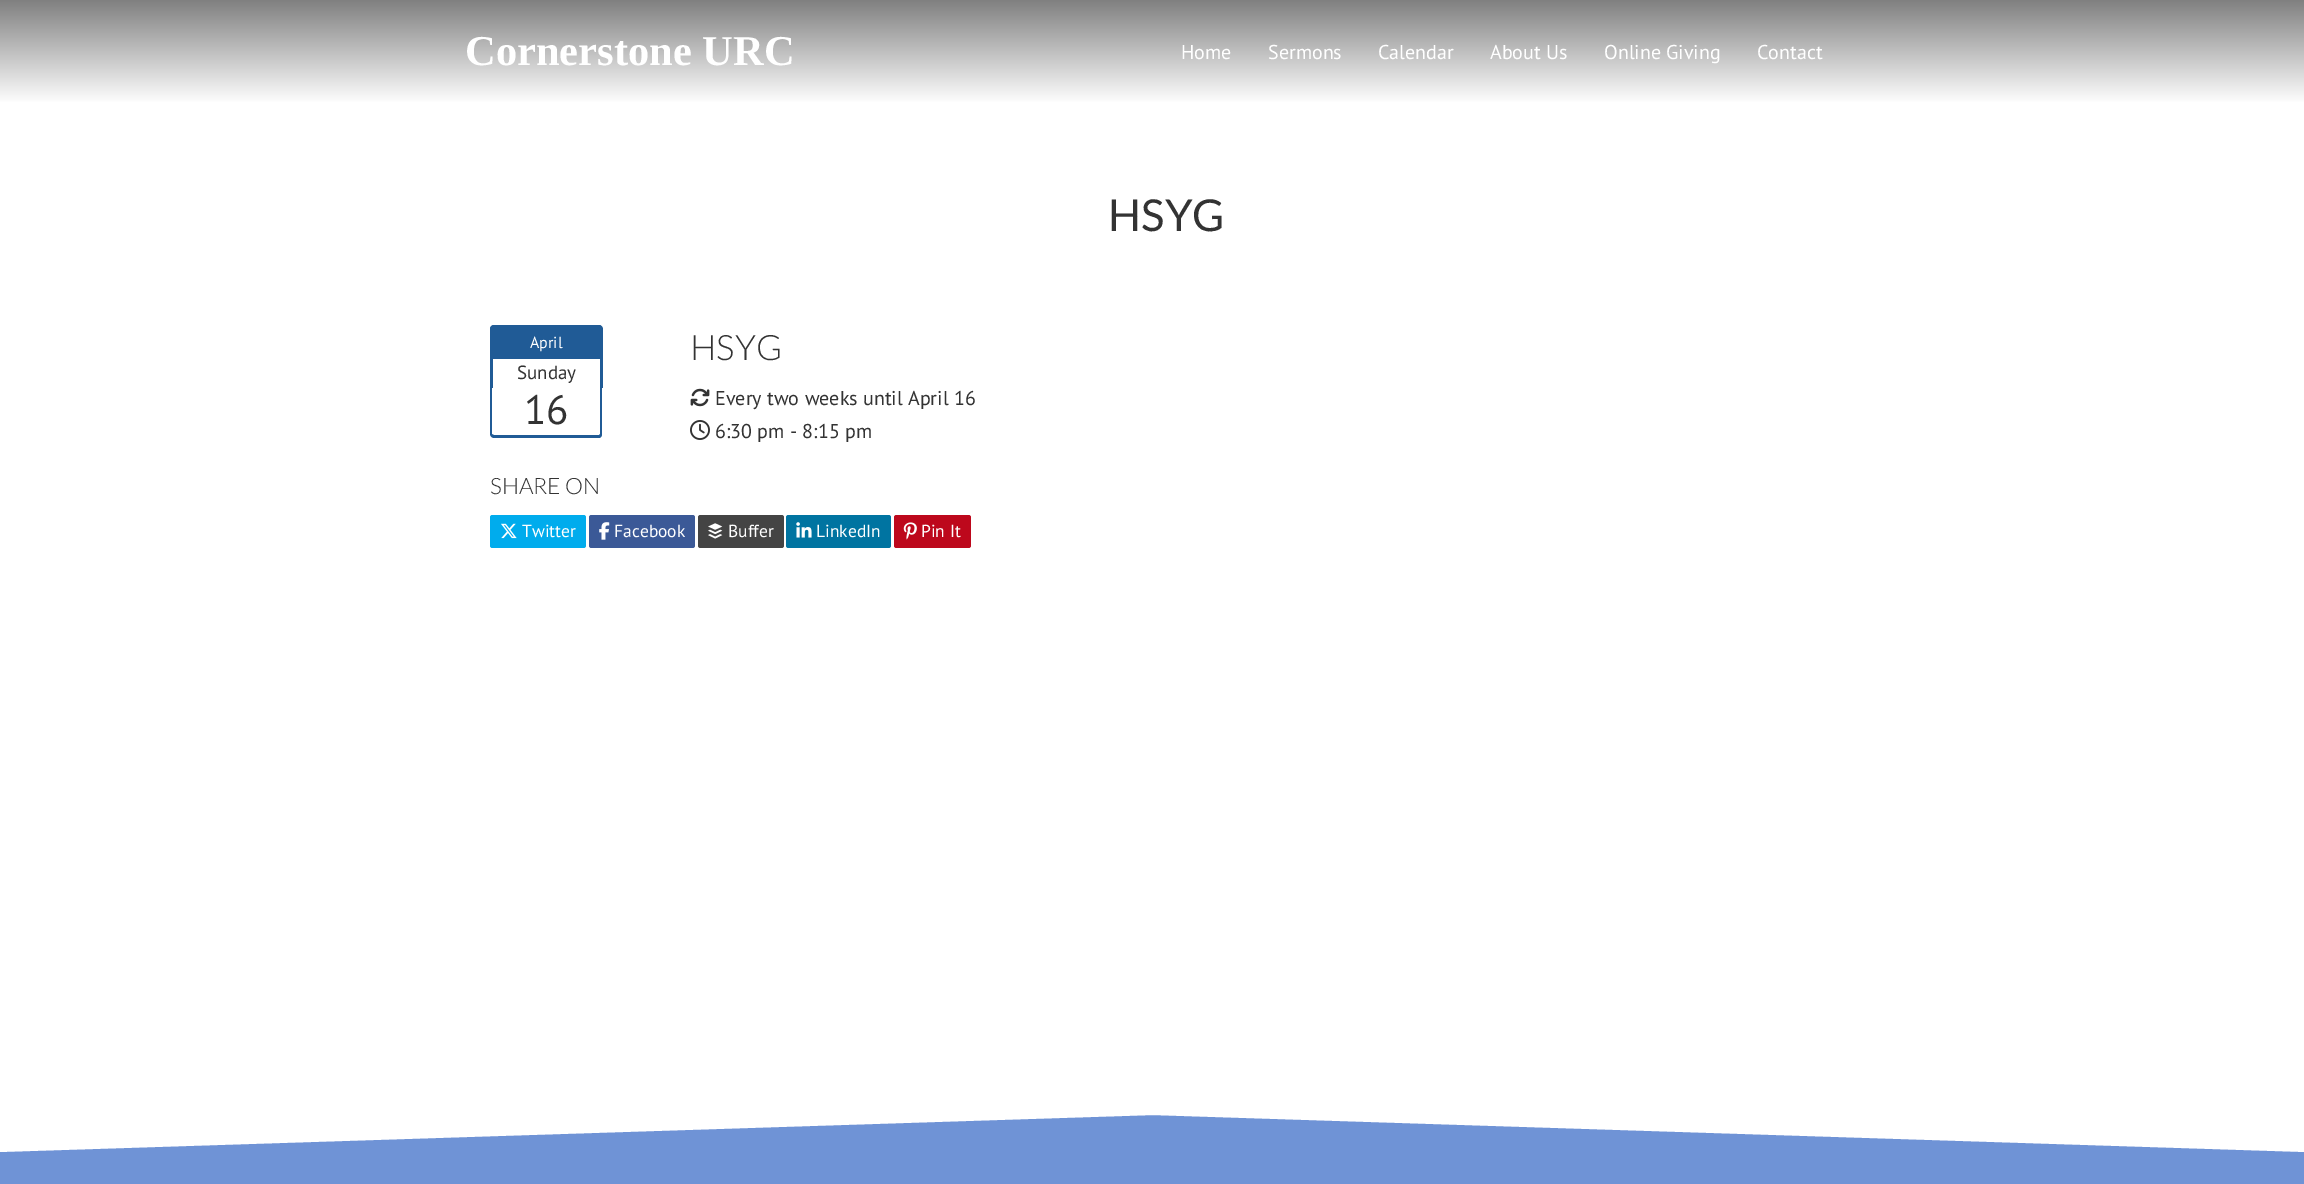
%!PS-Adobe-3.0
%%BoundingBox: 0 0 2304 1184
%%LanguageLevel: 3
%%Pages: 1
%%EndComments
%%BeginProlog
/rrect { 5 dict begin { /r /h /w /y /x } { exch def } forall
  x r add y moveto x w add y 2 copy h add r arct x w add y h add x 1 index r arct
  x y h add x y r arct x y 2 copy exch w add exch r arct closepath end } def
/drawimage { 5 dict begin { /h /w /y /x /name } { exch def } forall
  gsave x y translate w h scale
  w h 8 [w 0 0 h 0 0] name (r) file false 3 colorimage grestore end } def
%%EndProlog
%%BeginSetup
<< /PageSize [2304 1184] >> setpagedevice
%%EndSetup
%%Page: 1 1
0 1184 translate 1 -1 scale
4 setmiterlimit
1 setgray
0 0 2304 1184 rectfill
gsave newpath 0 0 moveto 2304 0 lineto 2304 102 lineto 0 102 lineto closepath clip newpath
<< /ShadingType 2 /ColorSpace /DeviceRGB /Coords [1153 0 1153 104] /Extend [true true] /Function << /FunctionType 2 /Domain [0 1] /C0 [0.502 0.502 0.502] /C1 [1 1 1] /N 1 >> >> shfill grestore
(images/1.raw) 690 388 20 19 drawimage
(images/2.raw) 690 420 20 20 drawimage
0 0.675 0.929 setrgbcolor
490 515 96 33 2.5 rrect fill
(images/3.raw) 501 523 16 16 drawimage
0.231 0.349 0.592 setrgbcolor
589 515 106 33 2.5 rrect fill
(images/4.raw) 599 522 11 18 drawimage
0.267 setgray
698 515 86 33 2.5 rrect fill
(images/5.raw) 708 523 15 16 drawimage
0 0.455 0.631 setrgbcolor
786 515 105 33 2.5 rrect fill
(images/6.raw) 796 522 16 16 drawimage
0.741 0.031 0.11 setrgbcolor
894 515 77 33 2.5 rrect fill
(images/7.raw) 903 522 14 18 drawimage
0.125 0.357 0.588 setrgbcolor
newpath 494 325 moveto 599 325 lineto 601 325 603 327 603 329 curveto 603 359 lineto 490 359 lineto 490 329 lineto 490 327 492 325 494 325 curveto closepath fill
newpath 494 325 moveto 599 325 lineto 601 325 602 327 602 329 curveto 602 359 lineto 490 359 lineto 490 329 lineto 490 327 492 325 494 325 curveto closepath 494 328 moveto 599 328 lineto 599 328 600 328 600 329 curveto 600 359 lineto 492 359 lineto 492 341 491 328 494 328 curveto closepath eofill
600 359 3 29 rectfill
490 359 3 29 rectfill
newpath 490 388 moveto 602 388 lineto 602 434 lineto 602 436 601 438 599 438 curveto 494 438 lineto 492 438 490 436 490 434 curveto closepath 492 388 moveto 600 388 lineto 600 434 lineto 600 434 599 435 599 435 curveto 494 435 lineto 493 435 492 434 492 434 curveto closepath eofill
0.435 0.576 0.839 setrgbcolor
0 1115 2304 69 rectfill
1 setgray
newpath -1 1152 moveto 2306 1152 lineto closepath -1 1078 moveto 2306 1078 lineto 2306 1115 lineto -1 1115 lineto closepath 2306 1152 moveto 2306 1115 lineto -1 1115 lineto -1 1152 lineto 1153 1115 lineto closepath fill
/LiberationSerif-Bold [42.5 0 0 -42.5 0 0] selectfont
465 65 moveto (Cornerstone URC) show
/PTSans-Regular [20 0 0 -20 0 0] selectfont
1181 59 moveto (Home) show
1268 59 moveto (Sermons) show
1378 59 moveto (Calendar) show
1490 59 moveto (About Us) show
1604 59 moveto (Online Giving) show
1757 59 moveto (Contact) show
/Lato-Regular [44 0 0 -44 0 0] selectfont
0.2 setgray
1108 231 moveto (HSYG) show
/Lato-Light [35 0 0 -35 0 0] selectfont
690 360 moveto (HSYG) show
/PTSans-Regular [20 0 0 -20 0 0] selectfont
715 405 moveto (Every two weeks until April 16) show
715 438 moveto (6:30 pm - 8:15 pm) show
/Lato-Light [22.5 0 0 -22.5 0 0] selectfont
490 494 moveto (SHARE ON) show
/PTSans-Regular [17.5 0 0 -17.5 0 0] selectfont
1 setgray
522 537 moveto (Twitter) show
614 537 moveto (Facebook) show
728 537 moveto (Buffer) show
816 537 moveto (LinkedIn) show
921 537 moveto (Pin It) show
/PTSans-Regular [16 0 0 -16 0 0] selectfont
530 348 moveto (April) show
/PTSans-Regular [19 0 0 -19 0 0] selectfont
0.2 setgray
517 379 moveto (Sunday) show
/PTSans-Regular [41 0 0 -41 0 0] selectfont
524 424 moveto (16) show
showpage
%%EOF
